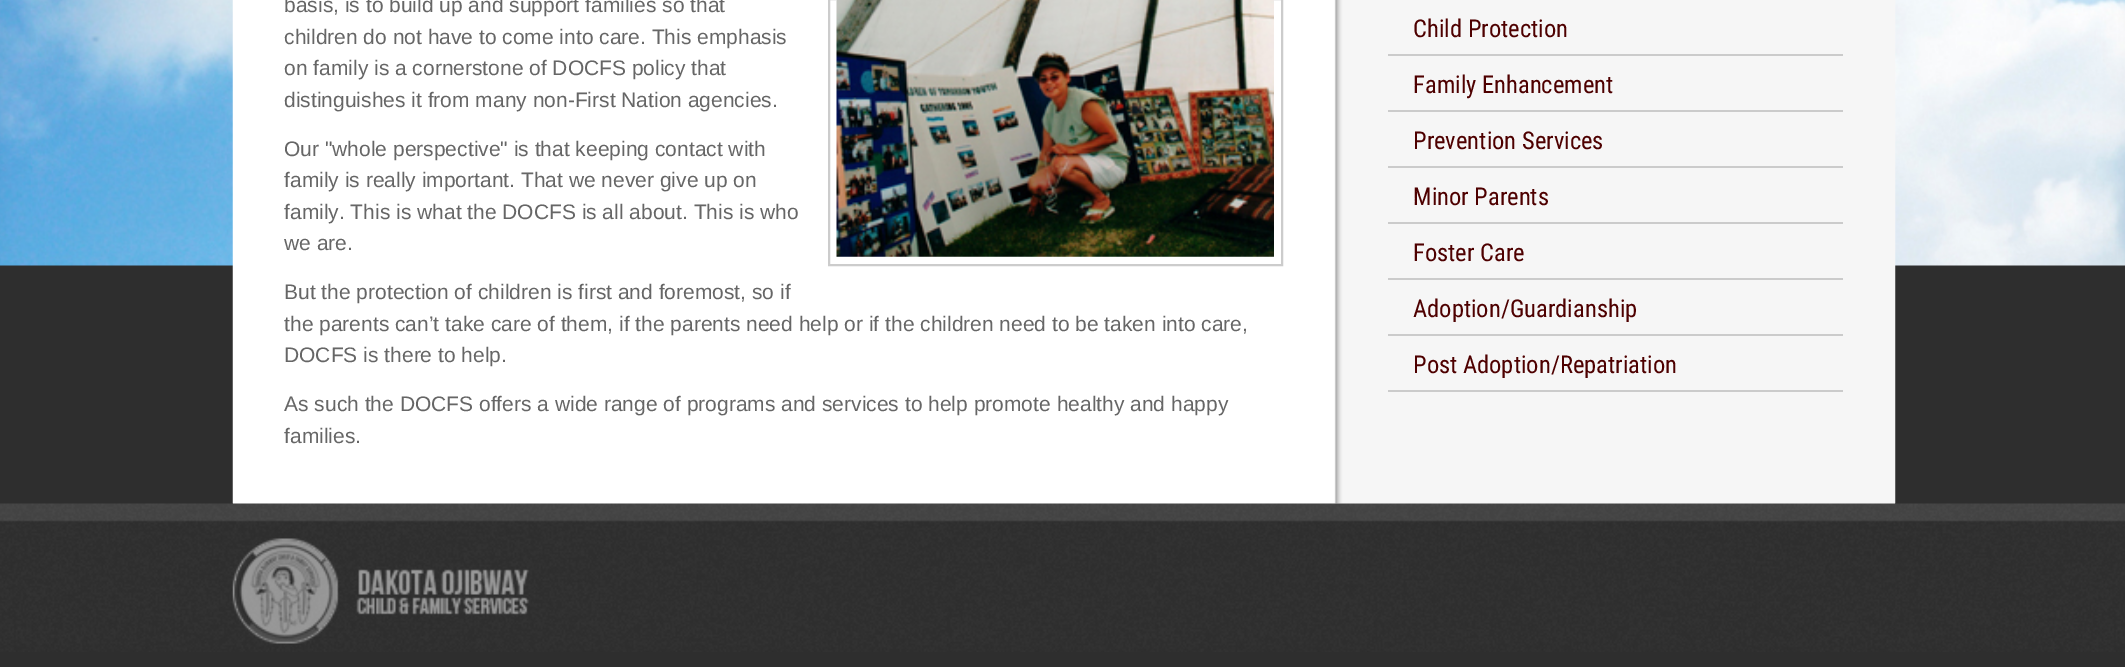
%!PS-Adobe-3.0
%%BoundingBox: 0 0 2125 667
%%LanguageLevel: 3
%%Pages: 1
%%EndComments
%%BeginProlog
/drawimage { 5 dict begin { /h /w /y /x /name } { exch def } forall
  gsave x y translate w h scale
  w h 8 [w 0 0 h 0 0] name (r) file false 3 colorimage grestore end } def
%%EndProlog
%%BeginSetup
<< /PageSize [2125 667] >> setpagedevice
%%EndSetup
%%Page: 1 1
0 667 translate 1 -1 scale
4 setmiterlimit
0.18 setgray
0 0 2125 667 rectfill
(images/1.raw) 0 0 2125 266 drawimage
(images/2.raw) 232 0 1664 504 drawimage
0.8 setgray
2 setlinewidth
829 -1 453 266 rectstroke
(images/3.raw) 836 0 438 257 drawimage
0.796 setgray
1388 54 455 2 rectfill
1388 110 455 2 rectfill
1388 166 455 2 rectfill
1388 222 455 2 rectfill
1388 278 455 2 rectfill
1388 334 455 2 rectfill
1388 390 455 2 rectfill
(images/4.raw) 0 503 2125 149 drawimage
(images/5.raw) 232 538 297 106 drawimage
/LiberationSans-Regular [21 0 0 -21 0 0] selectfont
0.4 setgray
284 12 moveto (basis, is to build up and support families so that) show
284 44 moveto (children do not have to come into care. This emphasis) show
284 75 moveto (on family is a cornerstone of DOCFS policy that) show
284 107 moveto (distinguishes it from many non-First Nation agencies.) show
284 156 moveto (Our "whole perspective" is that keeping contact with) show
284 187 moveto (family is really important. That we never give up on) show
284 219 moveto (family. This is what the DOCFS is all about. This is who) show
284 250 moveto (we are.) show
284 299 moveto (But the protection of children is first and foremost, so if) show
284 331 moveto (the parents can’t take care of them, if the parents need help or if the children need to be taken into care,) show
284 362 moveto (DOCFS is there to help.) show
284 411 moveto (As such the DOCFS offers a wide range of programs and services to help promote healthy and happy) show
284 443 moveto (families.) show
/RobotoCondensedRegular-Regular [24.5 0 0 -24.5 0 0] selectfont
0.306 0 0 setrgbcolor
1413 37 moveto (Child Protection) show
1413 93 moveto (Family Enhancement) show
1413 149 moveto (Prevention Services) show
1413 205 moveto (Minor Parents) show
1413 261 moveto (Foster Care) show
1413 317 moveto (Adoption/Guardianship) show
1413 373 moveto (Post Adoption/Repatriation) show
showpage
%%EOF
